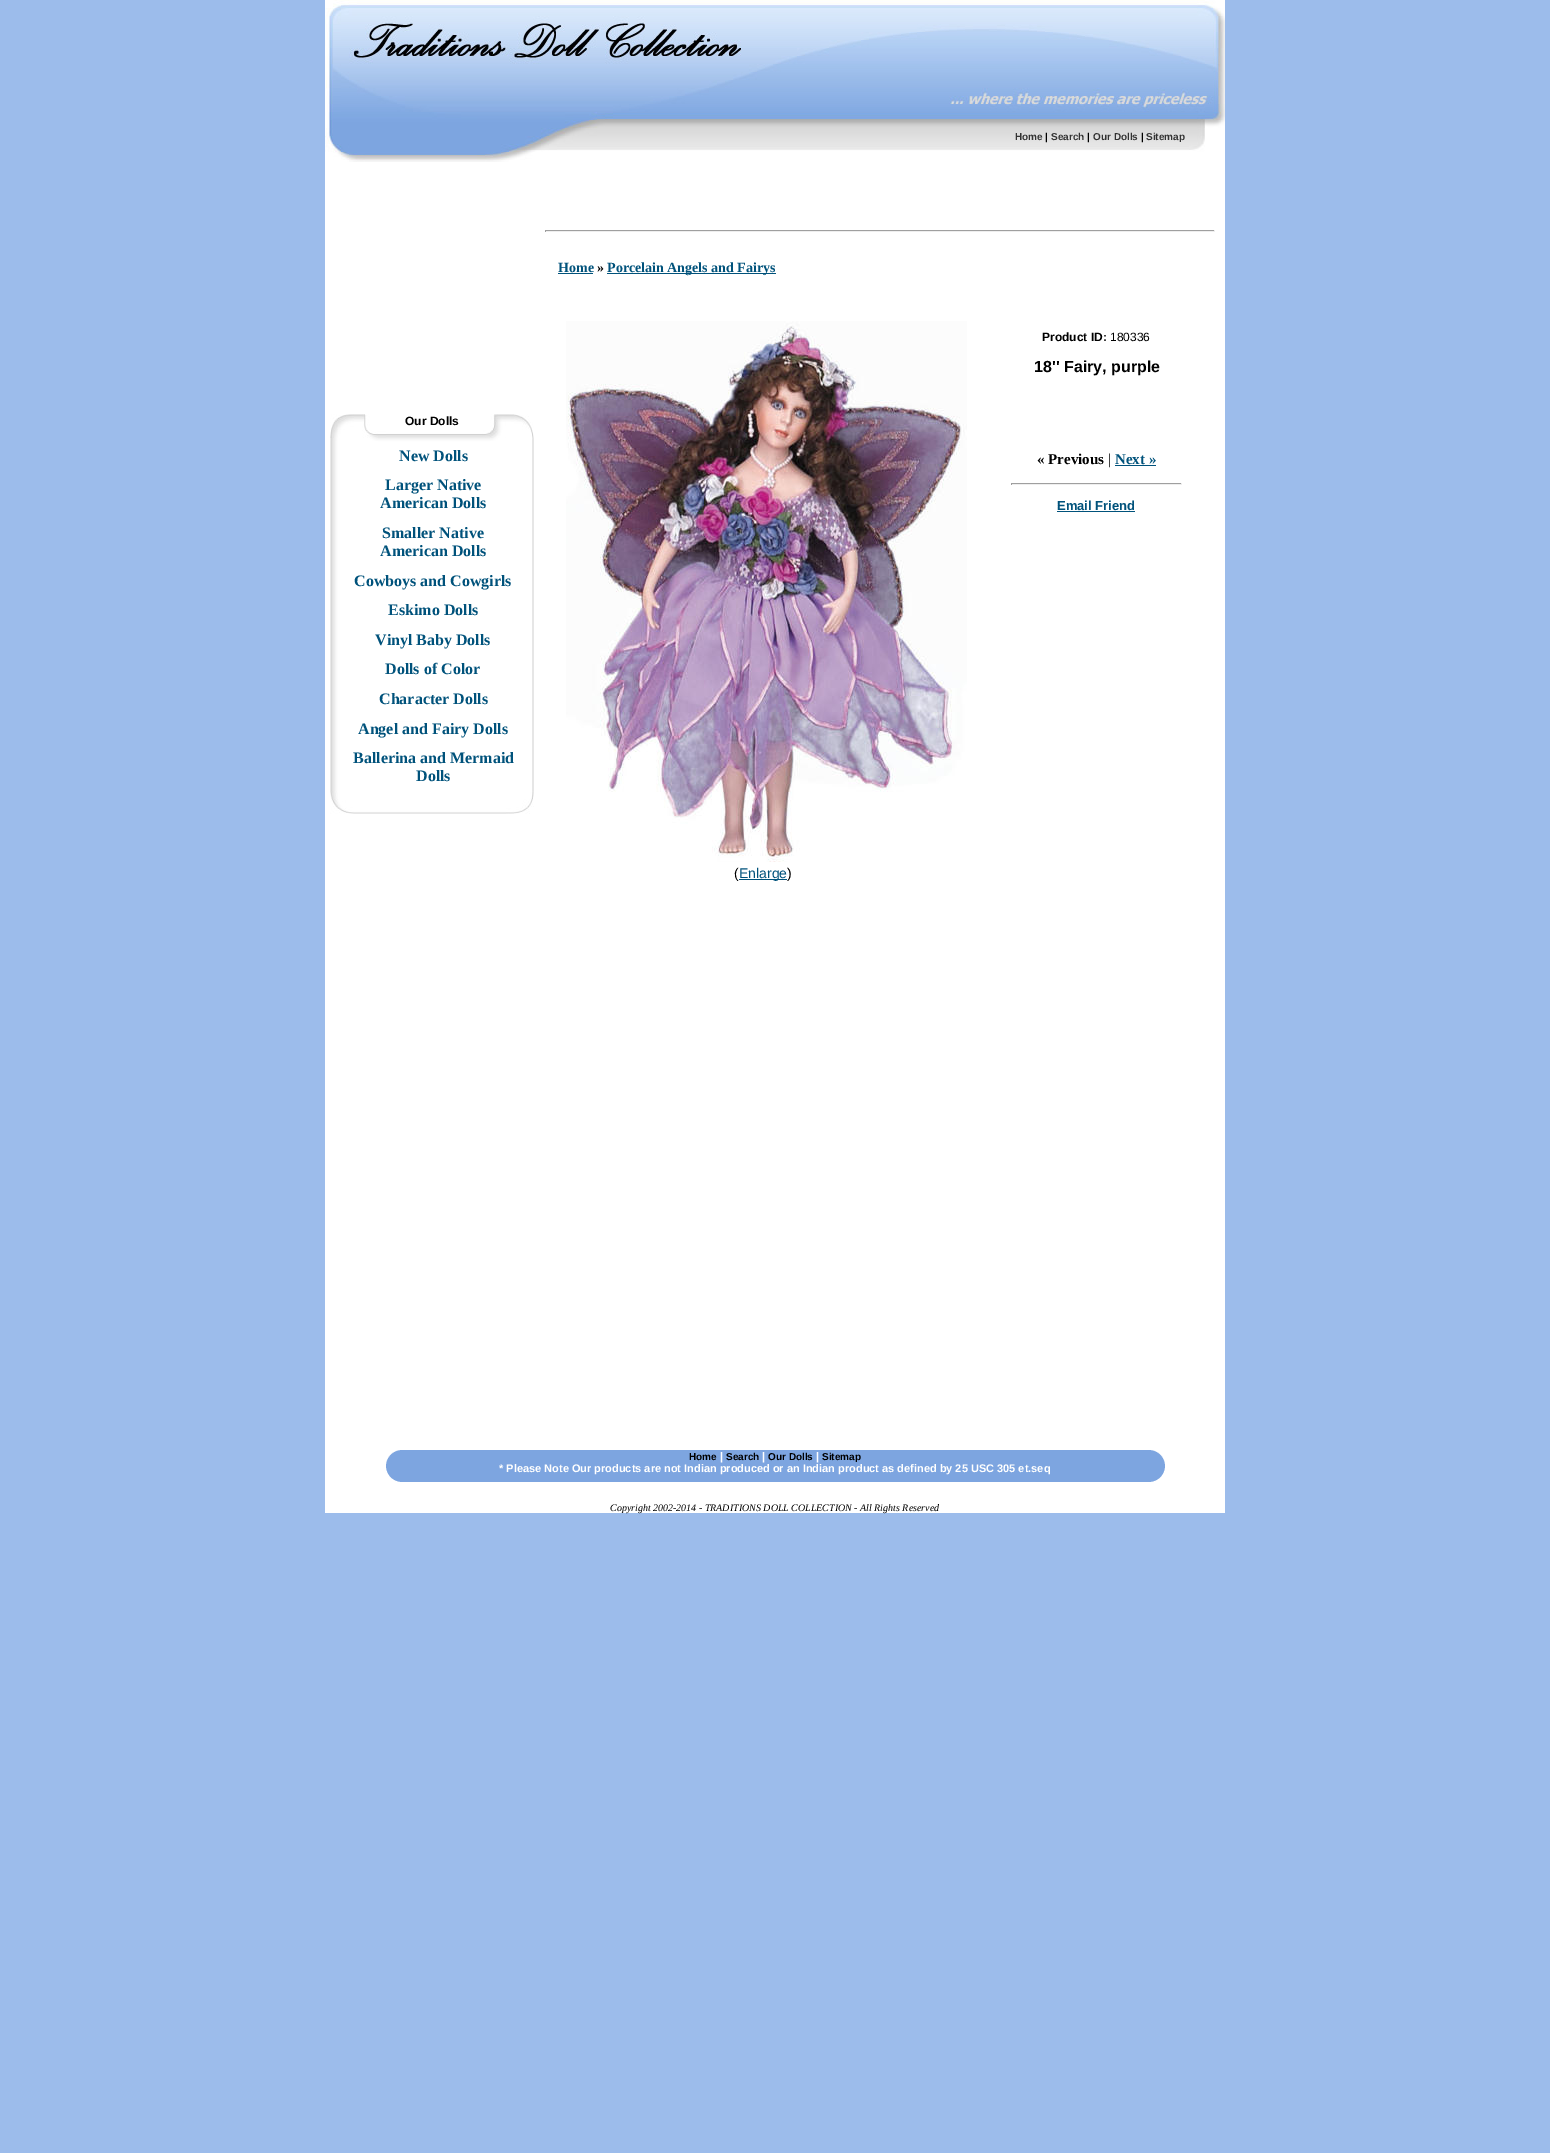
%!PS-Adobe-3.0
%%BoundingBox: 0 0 1550 2153
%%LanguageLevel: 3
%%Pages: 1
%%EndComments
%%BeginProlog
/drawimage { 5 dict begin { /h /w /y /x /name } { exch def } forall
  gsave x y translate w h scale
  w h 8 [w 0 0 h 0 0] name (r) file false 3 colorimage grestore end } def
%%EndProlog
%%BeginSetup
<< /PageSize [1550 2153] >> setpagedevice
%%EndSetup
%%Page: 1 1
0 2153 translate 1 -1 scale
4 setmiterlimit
0.612 0.737 0.922 setrgbcolor
0 0 1550 2153 rectfill
(images/1.raw) 325 0 900 162 drawimage
1 setgray
325 162 900 1351 rectfill
(images/2.raw) 330 414 204 27 drawimage
(images/3.raw) 330 441 204 350 drawimage
(images/4.raw) 330 791 204 23 drawimage
0.624 setgray
545 230 670 1 rectfill
0.933 setgray
1214 230 1 2 rectfill
545 231 670 1 rectfill
0.624 setgray
545 230 1 2 rectfill
0 0.322 0.482 setrgbcolor
558 273 35 1 rectfill
607 273 169 1 rectfill
1115 465 41 1 rectfill
0.624 setgray
1011 483 171 1 rectfill
0.933 setgray
1181 483 1 2 rectfill
1011 484 171 1 rectfill
0.624 setgray
1011 483 1 2 rectfill
0 0.322 0.482 setrgbcolor
1057 511 78 1 rectfill
(images/5.raw) 566 321 401 541 drawimage
739 879 48 1 rectfill
(images/6.raw) 386 1450 779 32 drawimage
/LiberationSans-Bold [10 0 0 -10 0 0] selectfont
0.2 setgray
1015 140 moveto (Home) show
0 setgray
1045 140 moveto (|) show
0.2 setgray
1051 140 moveto (Search) show
0 setgray
1087 140 moveto (|) show
0.2 setgray
1093 140 moveto (Our Dolls) show
0 setgray
1141 140 moveto (|) show
0.2 setgray
1146 140 moveto (Sitemap) show
/LiberationSans-Bold [12 0 0 -12 0 0] selectfont
0 setgray
405 425 moveto (Our Dolls) show
/LiberationSerif-Bold [16 0 0 -16 0 0] selectfont
0 0.322 0.482 setrgbcolor
399 461 moveto (New Dolls) show
385 490 moveto (Larger Native) show
380 508 moveto (American Dolls) show
382 538 moveto (Smaller Native) show
380 556 moveto (American Dolls) show
354 586 moveto (Cowboys and Cowgirls) show
388 615 moveto (Eskimo Dolls) show
375 645 moveto (Vinyl Baby Dolls) show
385 674 moveto (Dolls of Color) show
379 704 moveto (Character Dolls) show
358 734 moveto (Angel and Fairy Dolls) show
353 763 moveto (Ballerina and Mermaid) show
416 781 moveto (Dolls) show
/LiberationSerif-Bold [14 0 0 -14 0 0] selectfont
558 272 moveto (Home) show
0 setgray
597 272 moveto (») show
0 0.322 0.482 setrgbcolor
607 272 moveto (Porcelain Angels and Fairys) show
/LiberationSans-Bold [12 0 0 -12 0 0] selectfont
0 setgray
1042 341 moveto (Product ID:) show
/LiberationSans-Regular [12 0 0 -12 0 0] selectfont
1110 341 moveto (180336) show
/LiberationSans-Bold [16 0 0 -16 0 0] selectfont
1034 372 moveto (18'' Fairy, purple) show
/LiberationSerif-Bold [15 0 0 -15 0 0] selectfont
1037 464 moveto (« Previous) show
/LiberationSerif-Regular [15 0 0 -15 0 0] selectfont
1108 464 moveto (|) show
/LiberationSerif-Bold [15 0 0 -15 0 0] selectfont
0 0.322 0.482 setrgbcolor
1115 464 moveto (Next ») show
/LiberationSans-Bold [13 0 0 -13 0 0] selectfont
1057 510 moveto (Email Friend) show
/LiberationSans-Regular [14 0 0 -14 0 0] selectfont
0 setgray
734 878 moveto (\() show
0 0.322 0.482 setrgbcolor
739 878 moveto (Enlarge) show
0 setgray
787 878 moveto (\)) show
/LiberationSans-Bold [10 0 0 -10 0 0] selectfont
689 1460 moveto (Home) show
/LiberationSans-Bold [11 0 0 -11 0 0] selectfont
1 setgray
720 1460 moveto (|) show
/LiberationSans-Bold [10 0 0 -10 0 0] selectfont
0 setgray
726 1460 moveto (Search) show
/LiberationSans-Bold [11 0 0 -11 0 0] selectfont
1 setgray
762 1460 moveto (|) show
/LiberationSans-Bold [10 0 0 -10 0 0] selectfont
0 setgray
768 1460 moveto (Our Dolls) show
/LiberationSans-Bold [11 0 0 -11 0 0] selectfont
1 setgray
816 1460 moveto (|) show
/LiberationSans-Bold [10 0 0 -10 0 0] selectfont
0 setgray
822 1460 moveto (Sitemap) show
/LiberationSans-Bold [11 0 0 -11 0 0] selectfont
1 setgray
499 1472 moveto (* Please Note Our products are not Indian produced or an Indian product as defined by 25 USC 305 et.seq) show
/LiberationSerif-Italic [10 0 0 -10 0 0] selectfont
0 setgray
610 1511 moveto (Copyright 2002-2014 - TRADITIONS DOLL COLLECTION - All Rights Reserved) show
showpage
%%EOF
